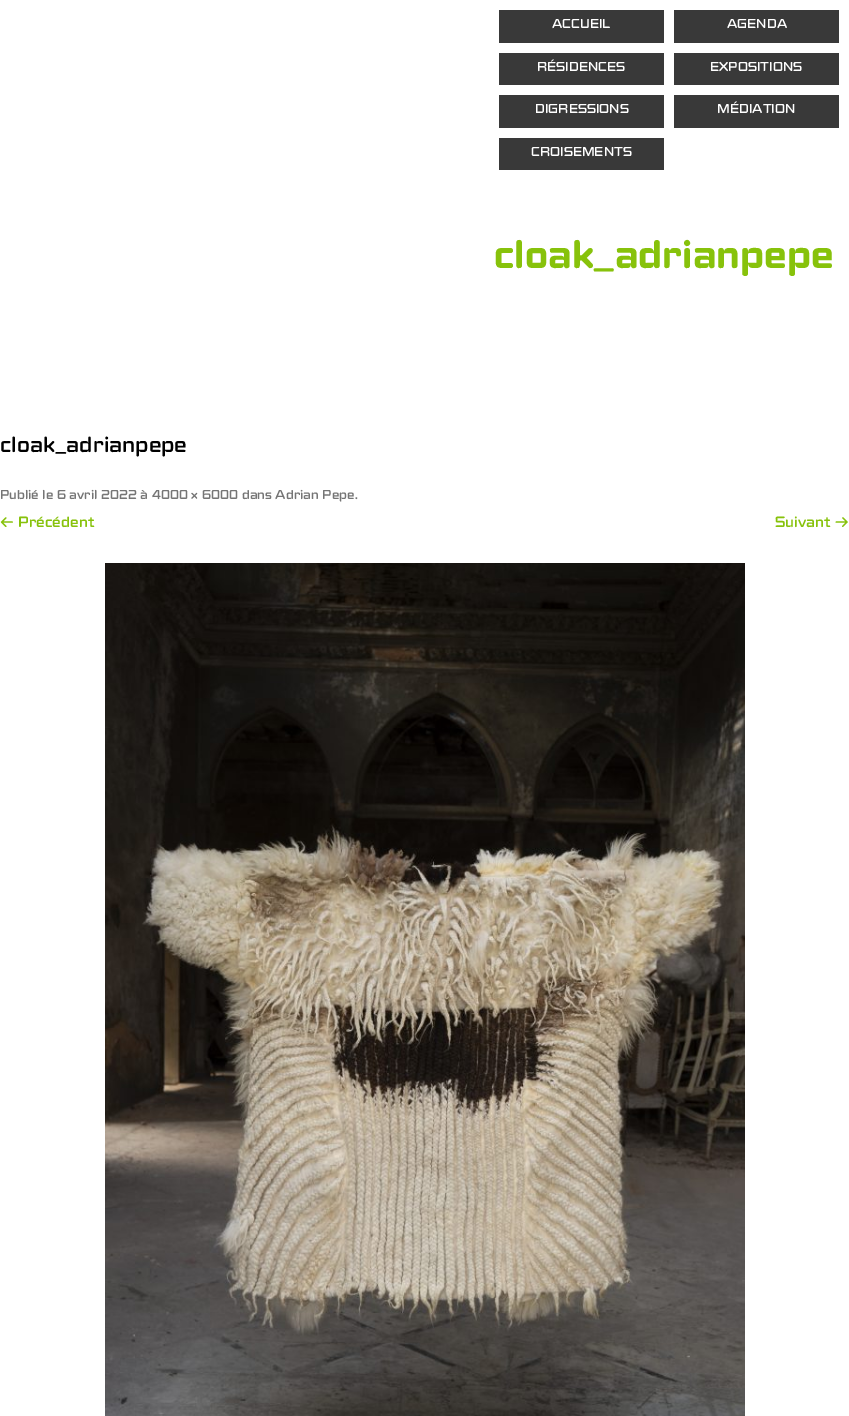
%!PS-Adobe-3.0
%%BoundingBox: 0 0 849 1416
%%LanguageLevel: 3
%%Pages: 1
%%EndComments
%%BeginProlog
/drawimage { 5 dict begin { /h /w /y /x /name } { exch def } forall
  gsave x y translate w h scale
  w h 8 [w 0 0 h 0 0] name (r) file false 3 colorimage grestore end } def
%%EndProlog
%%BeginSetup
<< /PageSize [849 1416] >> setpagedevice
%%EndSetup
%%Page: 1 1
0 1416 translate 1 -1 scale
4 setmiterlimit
1 setgray
0 0 849 1416 rectfill
0.224 setgray
499 10 165 33 rectfill
674 10 165 33 rectfill
499 53 165 32 rectfill
674 53 165 32 rectfill
499 95 165 33 rectfill
674 95 165 33 rectfill
499 138 165 32 rectfill
(images/1.raw) 105 563 640 853 drawimage
/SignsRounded-Regular [13 0 0 -13 0 0] selectfont
1 setgray
552 28 moveto (ACCUEIL) show
727 28 moveto (AGENDA) show
537 71 moveto (RÉSIDENCES) show
710 71 moveto (EXPOSITIONS) show
535 113 moveto (DIGRESSIONS) show
717 113 moveto (MÉDIATION) show
531 156 moveto (CROISEMENTS) show
/SignsRounded-Medium [40 0 0 -40 0 0] selectfont
0.529 0.761 0.043 setrgbcolor
494 268 moveto (cloak_adrianpepe) show
/SignsRounded-Regular [22 0 0 -22 0 0] selectfont
0 setgray
0 452 moveto (cloak_adrianpepe) show
/SignsRounded-Regular [13 0 0 -13 0 0] selectfont
0.459 setgray
0 499 moveto (Publié le 6 avril 2022 à 4000 × 6000 dans Adrian Pepe.) show
/SignsRounded-Regular [15 0 0 -15 0 0] selectfont
0.529 0.761 0.043 setrgbcolor
0 527 moveto (← Précédent) show
775 527 moveto (Suivant →) show
showpage
%%EOF
